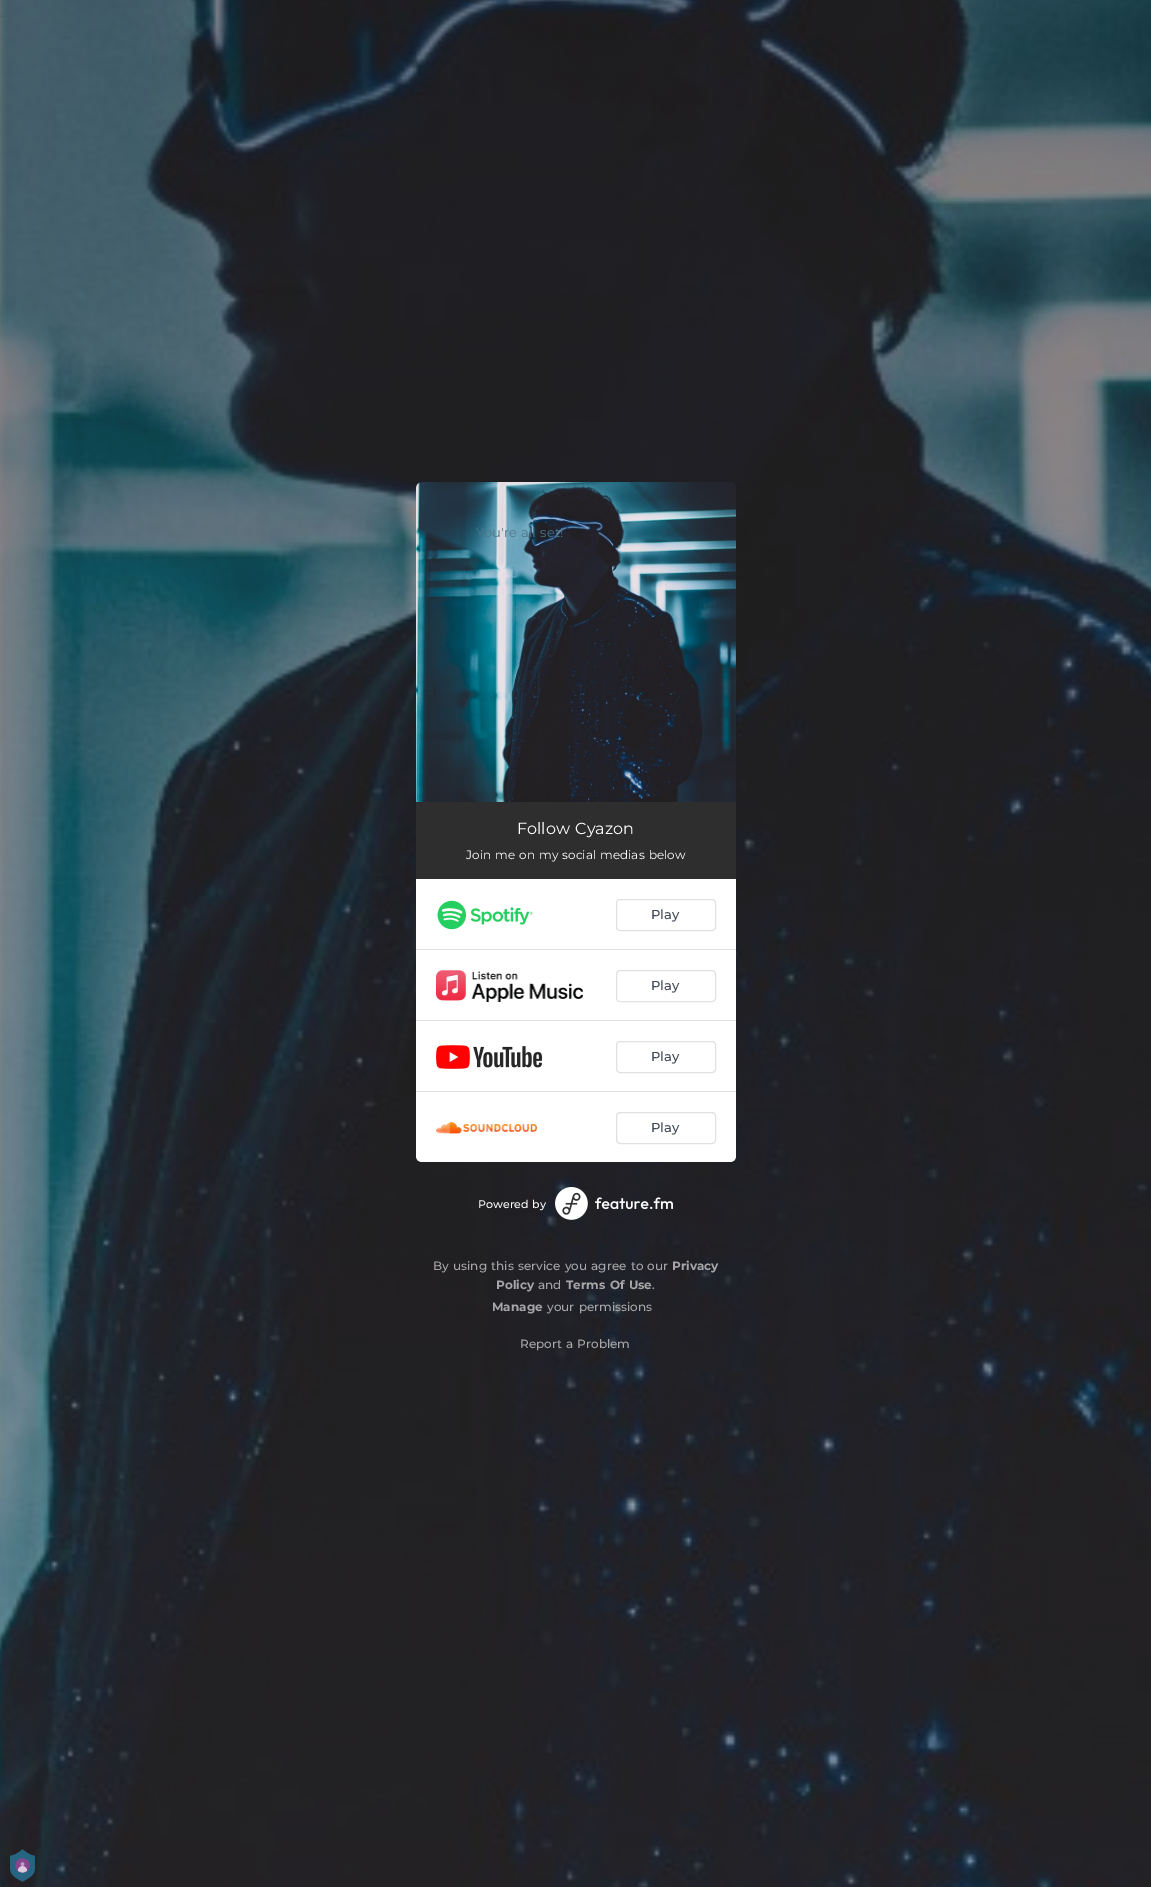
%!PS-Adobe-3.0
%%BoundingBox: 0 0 1151 1887
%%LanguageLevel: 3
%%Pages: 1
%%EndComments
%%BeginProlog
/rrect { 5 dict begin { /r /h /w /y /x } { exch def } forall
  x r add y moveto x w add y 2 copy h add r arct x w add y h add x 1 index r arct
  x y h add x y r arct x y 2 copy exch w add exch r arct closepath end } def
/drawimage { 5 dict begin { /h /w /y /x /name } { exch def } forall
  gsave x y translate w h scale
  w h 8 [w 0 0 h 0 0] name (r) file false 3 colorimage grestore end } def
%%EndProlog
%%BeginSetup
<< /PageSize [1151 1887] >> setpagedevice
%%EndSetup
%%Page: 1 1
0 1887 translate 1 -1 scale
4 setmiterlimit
1 setgray
0 0 1151 1887 rectfill
(images/1.raw) 0 0 1151 1887 drawimage
(images/2.raw) 416 482 320 320 drawimage
0.18 setgray
416 802 320 77 rectfill
1 setgray
newpath 416 879 moveto 736 879 lineto 736 1156 lineto 736 1159.5 733.5 1162 730 1162 curveto 422 1162 lineto 418.5 1162 416 1159.5 416 1156 curveto closepath fill
0.882 0.882 0.894 setrgbcolor
416 949 320 1 rectfill
(images/3.raw) 437 900 96 30 drawimage
616.5 899.5 99 31 3.5 rrect stroke
416 1020 320 1 rectfill
(images/4.raw) 436 970 147 32 drawimage
616.5 970.5 99 31 3.5 rrect stroke
416 1091 320 1 rectfill
(images/5.raw) 436 1045 106 24 drawimage
616.5 1041.5 99 31 3.5 rrect stroke
(images/6.raw) 436 1122 101 12 drawimage
616.5 1112.5 99 31 3.5 rrect stroke
(images/7.raw) 555 1187 118 33 drawimage
(images/8.raw) 10 1849 25 33 drawimage
/Montserrat-Regular [13 0 0 -13 0 0] selectfont
0.318 0.455 0.529 setrgbcolor
476 537 moveto 1 0 32 (You're all set!) widthshow
/Montserrat-Regular [16 0 0 -16 0 0] selectfont
1 setgray
517 834 moveto 1 0 32 (Follow Cyazon) widthshow
/Montserrat-Regular [12 0 0 -12 0 0] selectfont
466 859 moveto 1 0 32 (Join me on my social medias below) widthshow
/Montserrat-Medium [13 0 0 -13 0 0] selectfont
0.255 0.278 0.329 setrgbcolor
651 919 moveto (Play) show
651 990 moveto (Play) show
651 1061 moveto (Play) show
651 1132 moveto (Play) show
/Montserrat-Medium [11 0 0 -11 0 0] selectfont
1 setgray
478 1208 moveto 1 0 32 (Powered by) widthshow
/Montserrat-Medium [12 0 0 -12 0 0] selectfont
0.651 0.651 0.659 setrgbcolor
433 1270 moveto 1 0 32 (By using this service you agree to our) widthshow
/Montserrat-Bold [12 0 0 -12 0 0] selectfont
672 1270 moveto (Privacy) show
496 1289 moveto (Policy) show
/Montserrat-Medium [12 0 0 -12 0 0] selectfont
538 1289 moveto (and) show
/Montserrat-Bold [12 0 0 -12 0 0] selectfont
566 1289 moveto 1 0 32 (Terms Of Use) widthshow
/Montserrat-Medium [12 0 0 -12 0 0] selectfont
652 1289 moveto (.) show
/Montserrat-Bold [12 0 0 -12 0 0] selectfont
492 1311 moveto (Manage) show
/Montserrat-Medium [12 0 0 -12 0 0] selectfont
547 1311 moveto 1 0 32 (your permissions) widthshow
520 1348 moveto 1 0 32 (Report a Problem) widthshow
showpage
%%EOF
